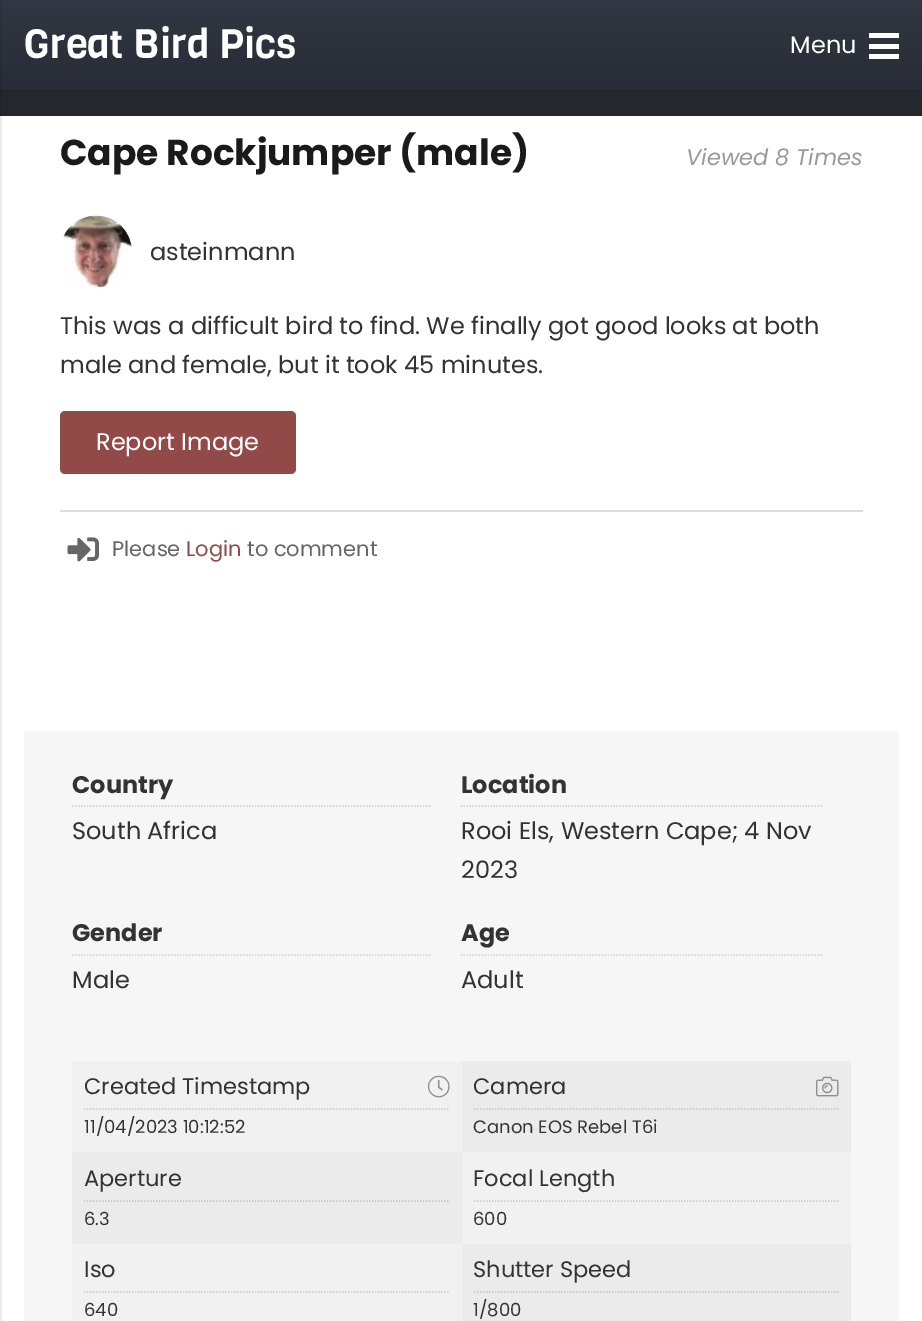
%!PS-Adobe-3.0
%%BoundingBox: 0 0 922 1321
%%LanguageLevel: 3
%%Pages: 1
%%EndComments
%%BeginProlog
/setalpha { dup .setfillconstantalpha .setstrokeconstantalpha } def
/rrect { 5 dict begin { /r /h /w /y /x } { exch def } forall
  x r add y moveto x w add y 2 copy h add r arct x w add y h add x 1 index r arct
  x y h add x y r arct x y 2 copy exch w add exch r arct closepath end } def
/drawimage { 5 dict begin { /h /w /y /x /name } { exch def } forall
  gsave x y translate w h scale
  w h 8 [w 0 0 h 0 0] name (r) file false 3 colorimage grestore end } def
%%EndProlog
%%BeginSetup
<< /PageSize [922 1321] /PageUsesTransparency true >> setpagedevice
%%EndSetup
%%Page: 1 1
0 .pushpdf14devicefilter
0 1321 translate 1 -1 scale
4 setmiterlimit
1 setgray
0 0 922 1321 rectfill
0.129 0.141 0.157 setrgbcolor
newpath 0 90 moveto 0 92 lineto 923 92 lineto 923 2 lineto 922 2 lineto 922 90 lineto closepath fill
gsave newpath 0 0 moveto 922 0 lineto 922 90 lineto 0 90 lineto closepath clip newpath
<< /ShadingType 2 /ColorSpace /DeviceRGB /Coords [461 0 461 90] /Extend [true true] /Function << /FunctionType 2 /Domain [0 1] /C0 [0.196 0.22 0.263] /C1 [0.153 0.173 0.212] /N 1 >> >> shfill grestore
0.141 0.153 0.169 setrgbcolor
0 92 922 24 rectfill
0.08 setalpha
0 setgray
newpath -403 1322 moveto 2 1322 lineto 2 0 lineto 0 0 lineto 0 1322 lineto closepath fill
1 setalpha
1 setgray
869 44 30 5 rectfill
869 33 30 5 rectfill
869 54 30 5 rectfill
(images/1.raw) 63 215 69 73 drawimage
0.573 0.29 0.282 setrgbcolor
60 411 236 63 5 rrect fill
0.867 setgray
60 510 803 2 rectfill
(images/2.raw) 67 537 32 25 drawimage
0.965 setgray
24 731 875 590 rectfill
0.82 setgray
1.5 setlinewidth
[1.5 1.5] 0 setdash
newpath 72 806 moveto 432 806 lineto stroke
newpath 460.5 806 moveto 822 806 lineto stroke
newpath 72 955 moveto 432 955 lineto stroke
newpath 460.5 955 moveto 822 955 lineto stroke
0.945 setgray
72 1061 779 260 rectfill
0.804 setgray
newpath 84 1109 moveto 450 1109 lineto stroke
(images/3.raw) 427 1075 23 23 drawimage
0.922 setgray
462 1061 389 91 rectfill
0.784 setgray
newpath 474 1109 moveto 838.5 1109 lineto stroke
(images/4.raw) 816 1076 23 21 drawimage
0.922 setgray
72 1152 390 92 rectfill
0.784 setgray
newpath 84 1201 moveto 450 1201 lineto stroke
0.804 setgray
newpath 474 1201 moveto 838.5 1201 lineto stroke
newpath 84 1292 moveto 450 1292 lineto stroke
0.922 setgray
462 1244 389 77 rectfill
0.784 setgray
newpath 474 1292 moveto 838.5 1292 lineto stroke
/Viga-Regular [40.5 0 0 -40.5 0 0] selectfont
1 setgray
24 58 moveto (Great Bird Pics) show
/Poppins-Regular [24 0 0 -24 0 0] selectfont
790 53 moveto (Menu) show
/Poppins-Bold [36 0 0 -36 0 0] selectfont
0.102 setgray
60 165 moveto (Cape Rockjumper \(male\)) show
/Poppins-Italic [22.5 0 0 -22.5 0 0] selectfont
0.6 setgray
686 165 moveto (Viewed 8 Times) show
/Poppins-Regular [24 0 0 -24 0 0] selectfont
0.2 setgray
150 260 moveto (asteinmann) show
60 334 moveto (This was a difficult bird to find. We finally got good looks at both) show
60 373 moveto (male and female, but it took 45 minutes.) show
1 setgray
96 450 moveto (Report Image) show
/Poppins-Regular [21 0 0 -21 0 0] selectfont
0.4 setgray
112 556 moveto (Please) show
0.573 0.29 0.282 setrgbcolor
186 556 moveto (Login) show
0.4 setgray
247 556 moveto (to comment) show
/Poppins-Bold [24 0 0 -24 0 0] selectfont
0.2 setgray
72 793 moveto (Country) show
/Poppins-Regular [24 0 0 -24 0 0] selectfont
72 839 moveto (South Africa) show
/Poppins-Bold [24 0 0 -24 0 0] selectfont
461 793 moveto (Location) show
/Poppins-Regular [24 0 0 -24 0 0] selectfont
461 839 moveto (Rooi Els, Western Cape; 4 Nov) show
461 878 moveto (2023) show
/Poppins-Bold [24 0 0 -24 0 0] selectfont
72 941 moveto (Gender) show
/Poppins-Regular [24 0 0 -24 0 0] selectfont
72 988 moveto (Male) show
/Poppins-Bold [24 0 0 -24 0 0] selectfont
461 941 moveto (Age) show
/Poppins-Regular [24 0 0 -24 0 0] selectfont
461 988 moveto (Adult) show
/Poppins-Regular [22.5 0 0 -22.5 0 0] selectfont
84 1094 moveto (Created Timestamp) show
/Poppins-Regular [18 0 0 -18 0 0] selectfont
84 1133 moveto (11/04/2023 10:12:52) show
/Poppins-Regular [22.5 0 0 -22.5 0 0] selectfont
473 1094 moveto (Camera) show
/Poppins-Regular [18 0 0 -18 0 0] selectfont
473 1133 moveto (Canon EOS Rebel T6i) show
/Poppins-Regular [22.5 0 0 -22.5 0 0] selectfont
84 1186 moveto (Aperture) show
/Poppins-Regular [18 0 0 -18 0 0] selectfont
84 1225 moveto (6.3) show
/Poppins-Regular [22.5 0 0 -22.5 0 0] selectfont
473 1186 moveto (Focal Length) show
/Poppins-Regular [18 0 0 -18 0 0] selectfont
473 1225 moveto (600) show
/Poppins-Regular [22.5 0 0 -22.5 0 0] selectfont
84 1277 moveto (Iso) show
/Poppins-Regular [18 0 0 -18 0 0] selectfont
84 1316 moveto (640) show
/Poppins-Regular [22.5 0 0 -22.5 0 0] selectfont
473 1277 moveto (Shutter Speed) show
/Poppins-Regular [18 0 0 -18 0 0] selectfont
473 1316 moveto (1/800) show
.poppdf14devicefilter showpage
%%EOF
